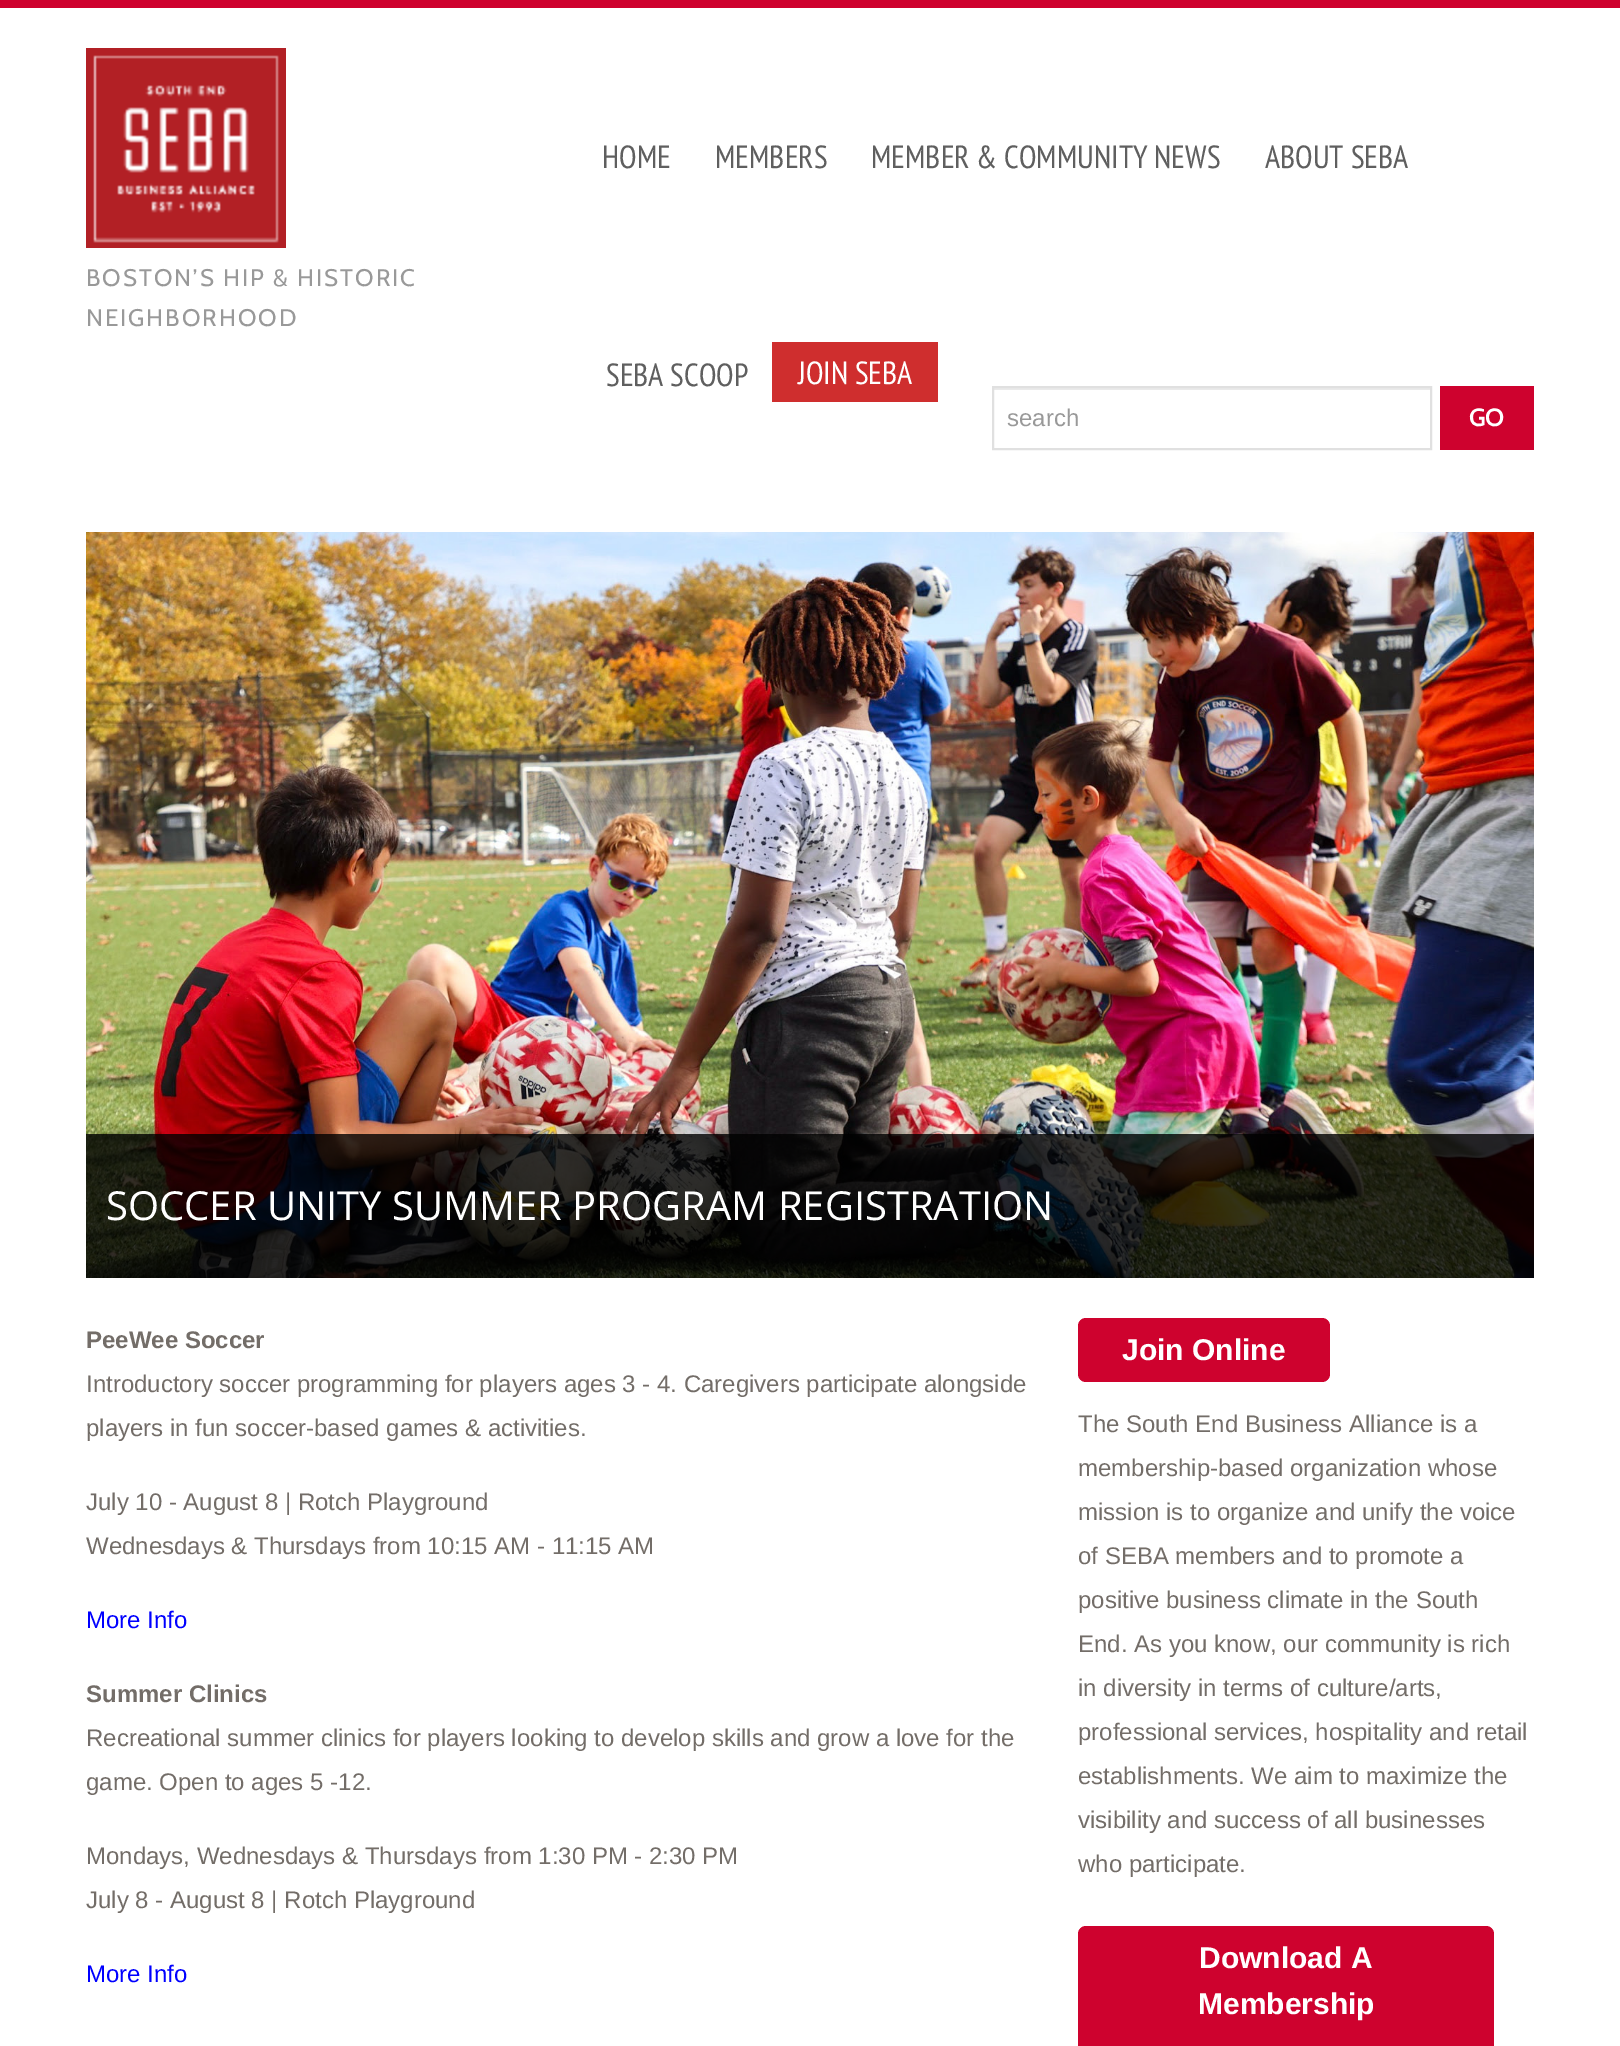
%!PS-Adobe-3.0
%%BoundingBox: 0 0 1620 2046
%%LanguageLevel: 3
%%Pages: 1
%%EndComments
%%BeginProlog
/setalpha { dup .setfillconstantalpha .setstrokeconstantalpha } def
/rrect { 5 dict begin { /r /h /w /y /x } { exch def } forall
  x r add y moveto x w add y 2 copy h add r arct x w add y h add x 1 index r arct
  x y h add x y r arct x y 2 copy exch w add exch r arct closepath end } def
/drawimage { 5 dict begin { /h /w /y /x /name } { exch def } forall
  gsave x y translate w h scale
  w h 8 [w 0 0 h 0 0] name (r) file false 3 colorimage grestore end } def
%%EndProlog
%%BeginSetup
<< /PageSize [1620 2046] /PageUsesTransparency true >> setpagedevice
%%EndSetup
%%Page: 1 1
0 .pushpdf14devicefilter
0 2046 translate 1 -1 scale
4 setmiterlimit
1 setgray
0 0 1620 2046 rectfill
0.808 0.008 0.18 setrgbcolor
0 0 1620 8 rectfill
(images/1.raw) 86 48 200 200 drawimage
0.812 0.18 0.18 setrgbcolor
772 342 166 60 rectfill
0.918 setgray
994 388 436 2 rectfill
0.878 setgray
2 setlinewidth
993 387 438 62 rectstroke
0.808 0.008 0.18 setrgbcolor
1440 386 94 64 rectfill
(images/2.raw) 86 532 1448 746 drawimage
0.8 setalpha
0 setgray
86 1134 1448 144 rectfill
1 setalpha
0.808 0.008 0.18 setrgbcolor
1078 1318 252 64 8 rrect fill
1078 1926 416 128 8 rrect fill
/Cabin-Regular [24 0 0 -24 0 0] selectfont
0.6 setgray
86 286 moveto 2 0 (BOSTON’S HIP & HISTORIC) ashow
86 326 moveto 2 0 (NEIGHBORHOOD) ashow
/PTSansNarrow-Regular [32 0 0 -32 0 0] selectfont
0.373 setgray
602 168 moveto (HOME) show
715 168 moveto (MEMBERS) show
871 168 moveto (MEMBER & COMMUNITY NEWS) show
1265 168 moveto (ABOUT SEBA) show
606 386 moveto (SEBA SCOOP) show
1 setgray
798 384 moveto (JOIN SEBA) show
/LiberationSans-Regular [24 0 0 -24 0 0] selectfont
0.6 setgray
1007 426 moveto (search) show
/Cabin-Bold [24 0 0 -24 0 0] selectfont
1 setgray
1469 426 moveto (GO) show
/OpenSans-Regular [40 0 0 -40 0 0] selectfont
106 1220 moveto (SOCCER UNITY SUMMER PROGRAM REGISTRATION) show
/LiberationSans-Bold [24 0 0 -24 0 0] selectfont
0.451 0.427 0.408 setrgbcolor
86 1348 moveto (PeeWee Soccer) show
/LiberationSans-Regular [24 0 0 -24 0 0] selectfont
86 1392 moveto (Introductory soccer programming for players ages 3 - 4. Caregivers participate alongside) show
86 1436 moveto (players in fun soccer-based games & activities.) show
86 1510 moveto (July 10 - August 8 | Rotch Playground) show
86 1554 moveto (Wednesdays & Thursdays from 10:15 AM - 11:15 AM) show
0 0 1 setrgbcolor
86 1628 moveto (More Info) show
/LiberationSans-Bold [24 0 0 -24 0 0] selectfont
0.451 0.427 0.408 setrgbcolor
86 1702 moveto (Summer Clinics) show
/LiberationSans-Regular [24 0 0 -24 0 0] selectfont
86 1746 moveto (Recreational summer clinics for players looking to develop skills and grow a love for the) show
86 1790 moveto (game. Open to ages 5 -12.) show
86 1864 moveto (Mondays, Wednesdays & Thursdays from 1:30 PM - 2:30 PM) show
86 1908 moveto (July 8 - August 8 | Rotch Playground) show
0 0 1 setrgbcolor
86 1982 moveto (More Info) show
/LiberationSans-Bold [30 0 0 -30 0 0] selectfont
1 setgray
1122 1360 moveto (Join Online) show
/LiberationSans-Regular [24 0 0 -24 0 0] selectfont
0.451 0.427 0.408 setrgbcolor
1078 1432 moveto (The South End Business Alliance is a) show
1078 1476 moveto (membership-based organization whose) show
1078 1520 moveto (mission is to organize and unify the voice) show
1078 1564 moveto (of SEBA members and to promote a) show
1078 1608 moveto (positive business climate in the South) show
1078 1652 moveto (End. As you know, our community is rich) show
1078 1696 moveto (in diversity in terms of culture/arts,) show
1078 1740 moveto (professional services, hospitality and retail) show
1078 1784 moveto (establishments. We aim to maximize the) show
1078 1828 moveto (visibility and success of all businesses) show
1078 1872 moveto (who participate.) show
/LiberationSans-Bold [30 0 0 -30 0 0] selectfont
1 setgray
1199 1968 moveto (Download A) show
1198 2014 moveto (Membership) show
.poppdf14devicefilter showpage
%%EOF
